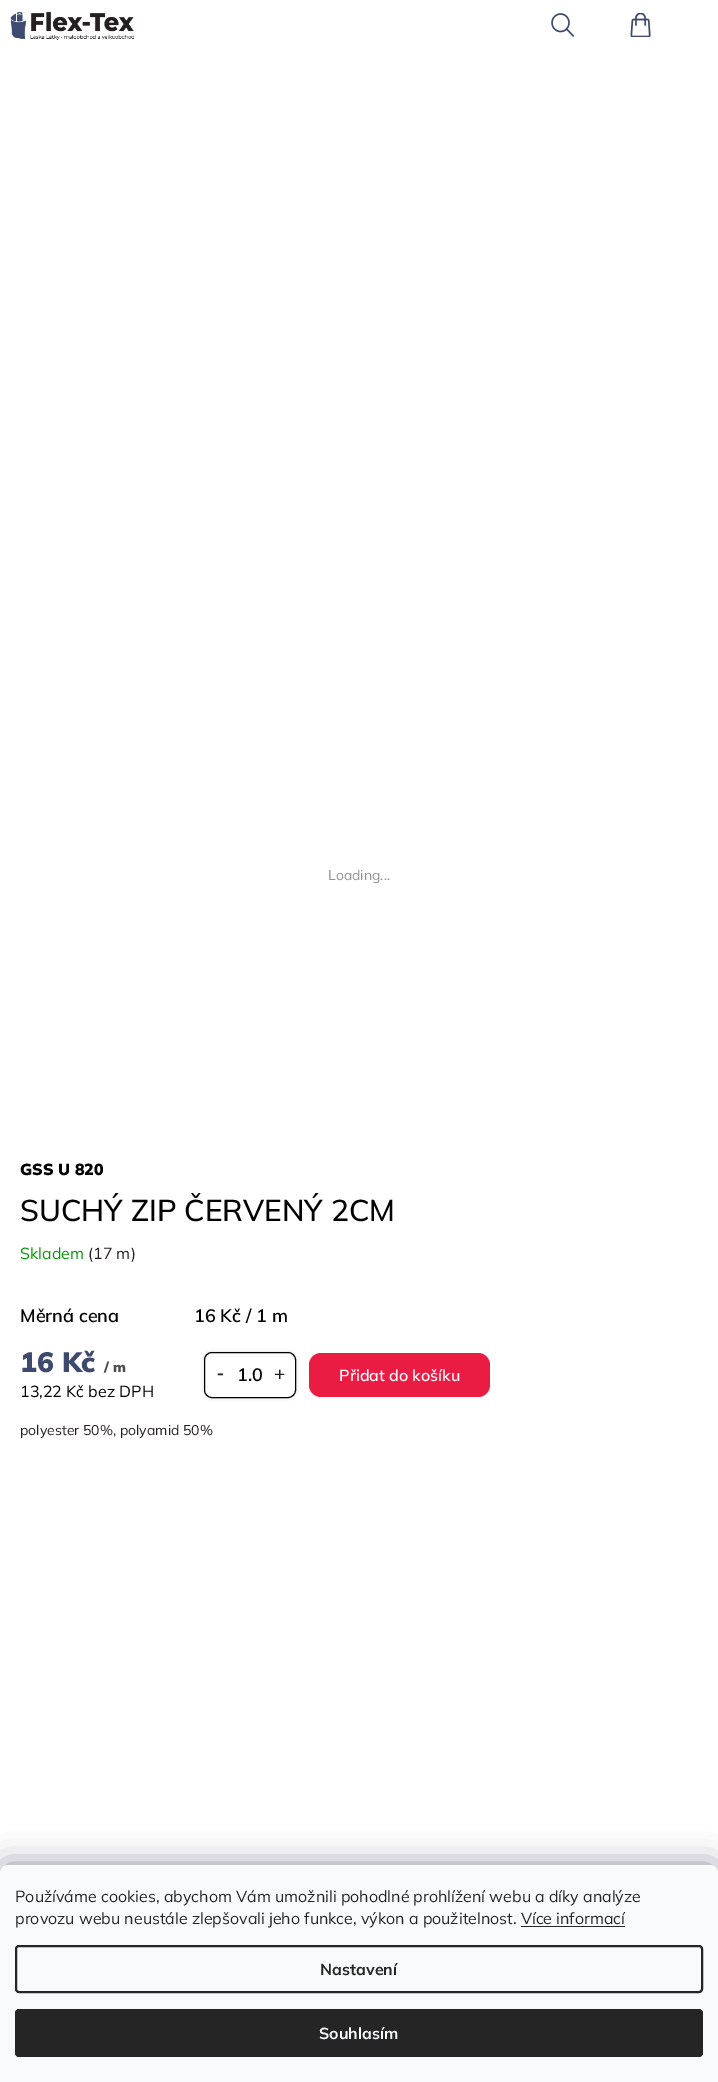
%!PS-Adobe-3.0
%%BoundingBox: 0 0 718 2082
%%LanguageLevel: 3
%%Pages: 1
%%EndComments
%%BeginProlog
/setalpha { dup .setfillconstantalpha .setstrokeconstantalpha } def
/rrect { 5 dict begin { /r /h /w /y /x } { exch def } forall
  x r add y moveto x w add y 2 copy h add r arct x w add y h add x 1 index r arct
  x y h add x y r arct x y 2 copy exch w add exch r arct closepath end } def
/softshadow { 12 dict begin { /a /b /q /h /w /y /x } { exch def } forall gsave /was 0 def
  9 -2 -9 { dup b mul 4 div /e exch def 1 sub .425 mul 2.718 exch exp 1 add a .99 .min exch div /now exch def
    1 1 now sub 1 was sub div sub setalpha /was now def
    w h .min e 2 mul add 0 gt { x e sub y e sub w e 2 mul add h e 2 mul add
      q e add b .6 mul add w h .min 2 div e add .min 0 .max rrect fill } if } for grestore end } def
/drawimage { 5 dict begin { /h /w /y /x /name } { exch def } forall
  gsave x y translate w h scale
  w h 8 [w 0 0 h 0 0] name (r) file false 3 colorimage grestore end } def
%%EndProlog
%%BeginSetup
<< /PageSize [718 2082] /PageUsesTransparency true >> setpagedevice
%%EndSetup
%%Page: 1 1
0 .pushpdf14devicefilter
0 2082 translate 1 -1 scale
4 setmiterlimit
1 setgray
0 0 718 2082 rectfill
(images/1.raw) 10 11 125 29 drawimage
(images/2.raw) 630 13 21 24 drawimage
(images/3.raw) 551 13 24 24 drawimage
gsave
newpath 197 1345 moveto 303 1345 lineto 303 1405 lineto 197 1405 lineto closepath 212 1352 moveto 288 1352 lineto 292.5 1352 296 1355.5 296 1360 curveto 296 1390 lineto 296 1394.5 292.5 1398 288 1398 curveto 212 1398 lineto 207.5 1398 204 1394.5 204 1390 curveto 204 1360 lineto 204 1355.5 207.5 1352 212 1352 curveto closepath eoclip newpath
0 setgray
204 1352 92 46 8 2 0.15 softshadow
grestore
0 setgray
204.5 1352.5 91 45 7.5 rrect stroke
0.918 0.11 0.263 setrgbcolor
309 1353 181 44 12 rrect fill
0.106 0.098 0.224 setrgbcolor
0 1865 718 217 8 15 0.5 softshadow
0.973 0.98 0.984 setrgbcolor
newpath 8 1865 moveto 710 1865 lineto 714.5 1865 718 1868.5 718 1873 curveto 718 2082 lineto 0 2082 lineto 0 1873 lineto 0 1868.5 3.5 1865 8 1865 curveto closepath fill
0.145 setgray
521 1926 104 1 rectfill
2 setlinewidth
16 1946 686 46 3 rrect stroke
15 2009 688 48 4 rrect fill
/Mulish-Regular [14 0 0 -14 0 0] selectfont
0.569 0.561 0.565 setrgbcolor
328 880 moveto (Loading...) show
/Mulish-Black [16 0 0 -16 0 0] selectfont
0 setgray
20 1175 moveto (GSS U 820) show
/Mulish-Medium [30 0 0 -30 0 0] selectfont
20 1221 moveto (SUCHÝ ZIP ČERVENÝ 2CM) show
/Mulish-Regular [16 0 0 -16 0 0] selectfont
0 0.6 0.004 setrgbcolor
20 1259 moveto (Skladem) show
0.137 0.122 0.125 setrgbcolor
88 1259 moveto (\(17 m\)) show
/Mulish-SemiBold [18 0 0 -18 0 0] selectfont
0 setgray
20 1322 moveto (Měrná cena) show
194 1322 moveto (16 Kč / 1 m) show
/Mulish-Black [28 0 0 -28 0 0] selectfont
0.239 0.29 0.431 setrgbcolor
20 1372 moveto (16 Kč) show
/Mulish-Black [14 0 0 -14 0 0] selectfont
0.302 setgray
104 1372 moveto (/ m) show
/Mulish-Regular [16 0 0 -16 0 0] selectfont
0 setgray
20 1397 moveto (13,22 Kč bez DPH) show
/LiberationSerif-Bold [20 0 0 -20 0 0] selectfont
0.137 0.122 0.125 setrgbcolor
217 1379 moveto (-) show
/Mulish-SemiBold [18 0 0 -18 0 0] selectfont
0 setgray
237 1381 moveto (1.0) show
/LiberationSerif-Bold [20 0 0 -20 0 0] selectfont
0.137 0.122 0.125 setrgbcolor
274 1381 moveto (+) show
/Mulish-SemiBold [16 0 0 -16 0 0] selectfont
1 setgray
339 1381 moveto (Přidat do košíku) show
/Mulish-Regular [14 0 0 -14 0 0] selectfont
0.137 0.122 0.125 setrgbcolor
20 1435 moveto (polyester 50%, polyamid 50%) show
/Mulish-Regular [16 0 0 -16 0 0] selectfont
0.145 setgray
15 1902 moveto (Používáme cookies, abychom Vám umožnili pohodlné prohlížení webu a díky analýze) show
15 1924 moveto (provozu webu neustále zlepšovali jeho funkce, výkon a použitelnost. Více informací) show
/Mulish-Bold [16 0 0 -16 0 0] selectfont
320 1975 moveto (Nastavení) show
0.973 0.98 0.984 setrgbcolor
319 2039 moveto (Souhlasím) show
.poppdf14devicefilter showpage
%%EOF
